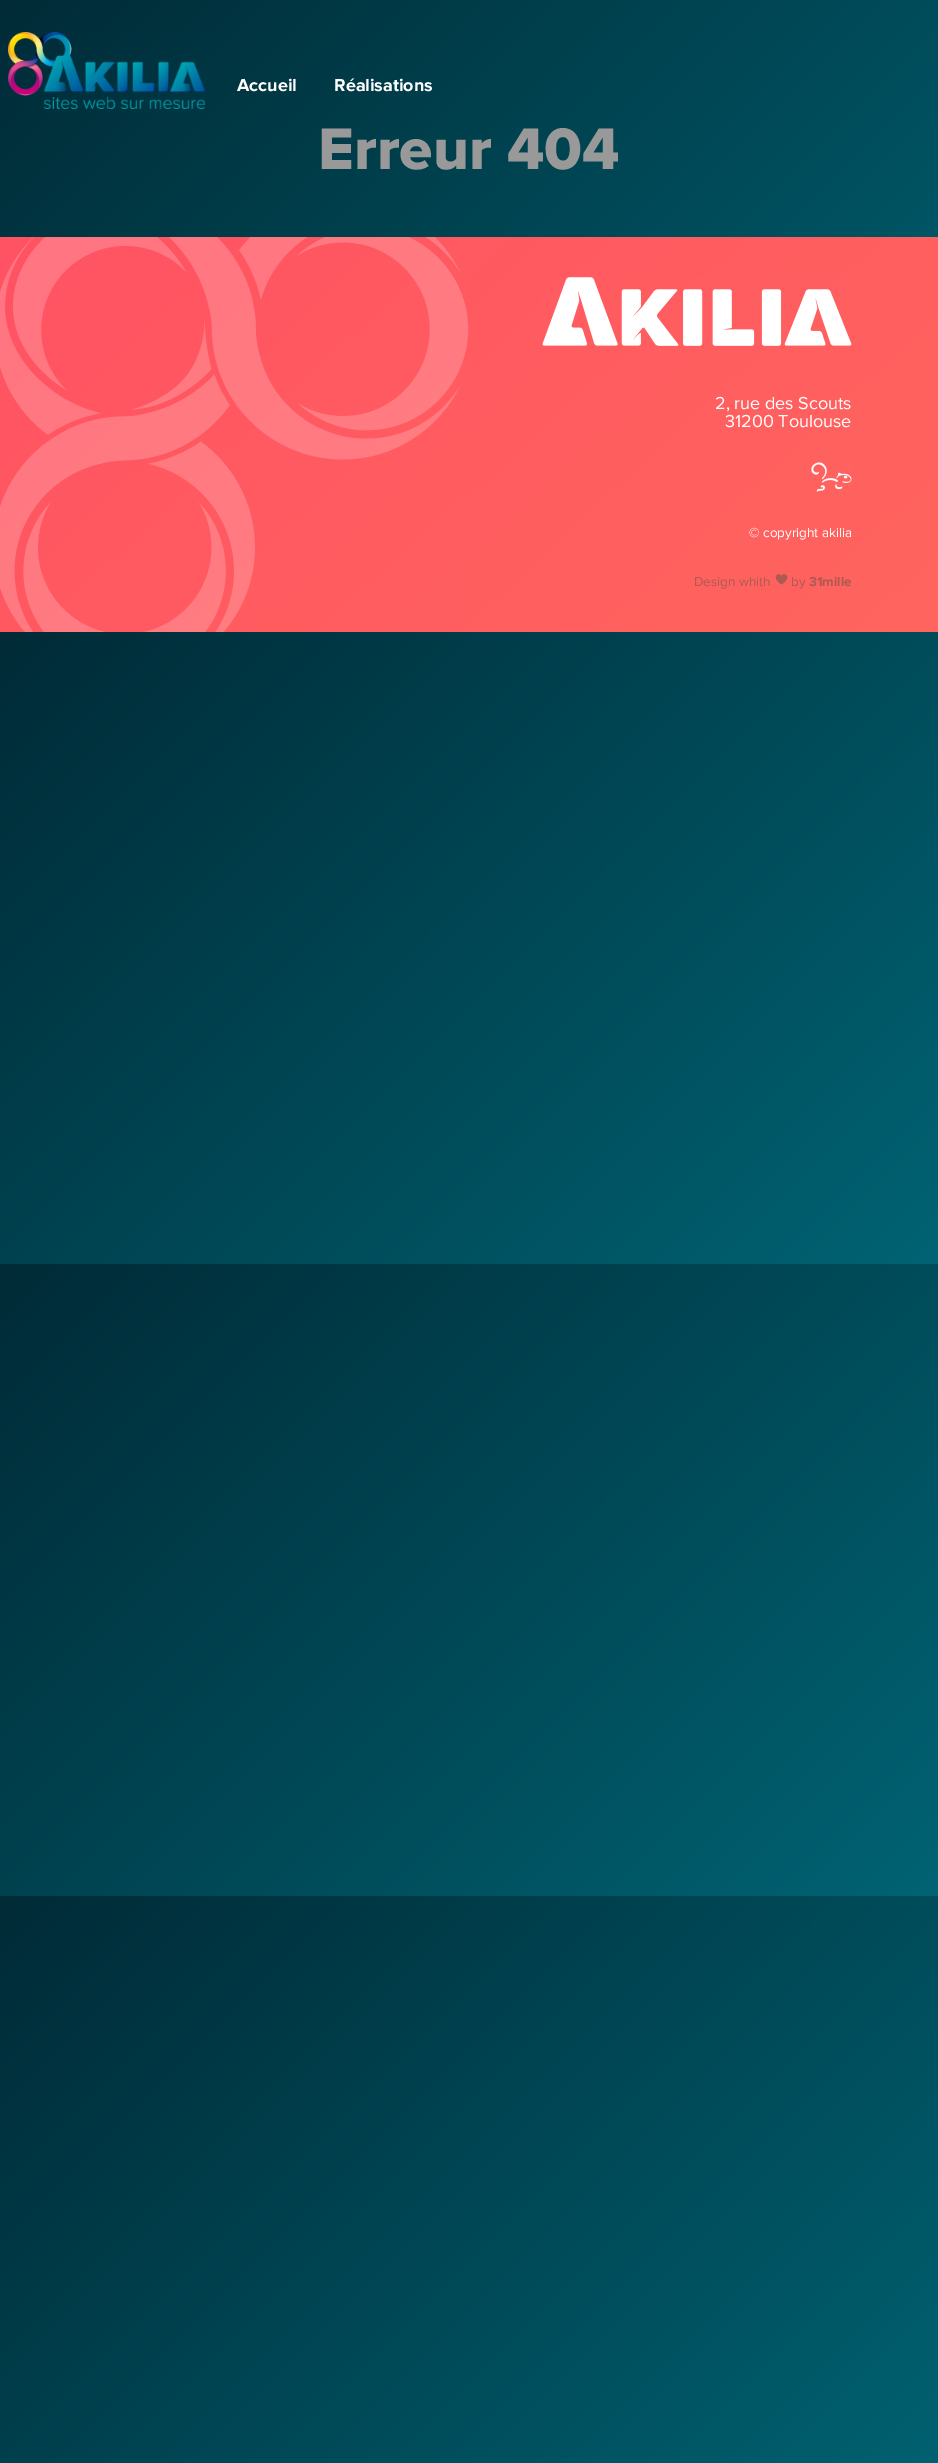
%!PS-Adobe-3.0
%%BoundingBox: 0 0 938 2463
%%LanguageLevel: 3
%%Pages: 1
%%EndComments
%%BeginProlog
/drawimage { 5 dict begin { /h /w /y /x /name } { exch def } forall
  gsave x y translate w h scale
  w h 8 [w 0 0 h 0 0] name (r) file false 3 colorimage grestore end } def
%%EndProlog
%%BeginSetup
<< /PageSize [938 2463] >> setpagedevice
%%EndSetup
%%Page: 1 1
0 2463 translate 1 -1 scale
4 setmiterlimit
1 setgray
0 0 938 2463 rectfill
gsave newpath 0 0 moveto 938 0 lineto 938 237 lineto 0 237 lineto closepath clip newpath
<< /ShadingType 2 /ColorSpace /DeviceRGB /Coords [76 -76 862 709] /Extend [true true] /Function << /FunctionType 2 /Domain [0 1] /C0 [0 0.169 0.216] /C1 [0 0.388 0.451] /N 1 >> >> shfill grestore
gsave newpath 0 632 moveto 938 632 lineto 938 1264 lineto 0 1264 lineto closepath clip newpath
<< /ShadingType 2 /ColorSpace /DeviceRGB /Coords [76 556 862 1341] /Extend [true true] /Function << /FunctionType 2 /Domain [0 1] /C0 [0 0.169 0.216] /C1 [0 0.388 0.451] /N 1 >> >> shfill grestore
gsave newpath 0 1264 moveto 938 1264 lineto 938 1896 lineto 0 1896 lineto closepath clip newpath
<< /ShadingType 2 /ColorSpace /DeviceRGB /Coords [76 1188 862 1973] /Extend [true true] /Function << /FunctionType 2 /Domain [0 1] /C0 [0 0.169 0.216] /C1 [0 0.388 0.451] /N 1 >> >> shfill grestore
gsave newpath 0 1896 moveto 938 1896 lineto 938 2463 lineto 0 2463 lineto closepath clip newpath
<< /ShadingType 2 /ColorSpace /DeviceRGB /Coords [76 1820 862 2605] /Extend [true true] /Function << /FunctionType 2 /Domain [0 1] /C0 [0 0.169 0.216] /C1 [0 0.388 0.451] /N 1 >> >> shfill grestore
(images/1.raw) 8 32 197 77 drawimage
gsave newpath 0 237 moveto 938 237 lineto 938 632 lineto 0 632 lineto closepath clip newpath
<< /ShadingType 2 /ColorSpace /DeviceRGB /Coords [914 -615 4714 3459] /Extend [true true] /Function << /FunctionType 3 /Domain [0 1] /Functions [<< /FunctionType 2 /Domain [0 1] /C0 [1 0.322 0.388] /C1 [1 0.549 0.325] /N 1 >> << /FunctionType 2 /Domain [0 1] /C0 [1 0.549 0.325] /C1 [1 0.322 0.388] /N 1 >>] /Bounds [0.5] /Encode [0 1 0 1] >> >> shfill grestore
(images/2.raw) 0 237 469 395 drawimage
(images/3.raw) 542 277 310 69 drawimage
(images/4.raw) 811 462 41 30 drawimage
(images/5.raw) 775 574 13 11 drawimage
/ProximaNova-Bold [18 0 0 -18 0 0] selectfont
237 91 moveto (Accueil) show
334 91 moveto (Réalisations) show
/ProximaNova-ExtraBold [60.75 0 0 -60.75 0 0] selectfont
0.6 setgray
318 169 moveto (Erreur 404) show
/ProximaNova-Regular [18 0 0 -18 0 0] selectfont
1 setgray
715 409 moveto (2, rue des Scouts) show
725 427 moveto (31200 Toulouse) show
/ProximaNova-Regular [13.5 0 0 -13.5 0 0] selectfont
749 537 moveto (© copyright akilia) show
0.678 0.353 0.322 setrgbcolor
694 586 moveto (Design whith) show
791 586 moveto (by) show
/ProximaNova-Bold [13.5 0 0 -13.5 0 0] selectfont
809 586 moveto (31mille) show
showpage
%%EOF
